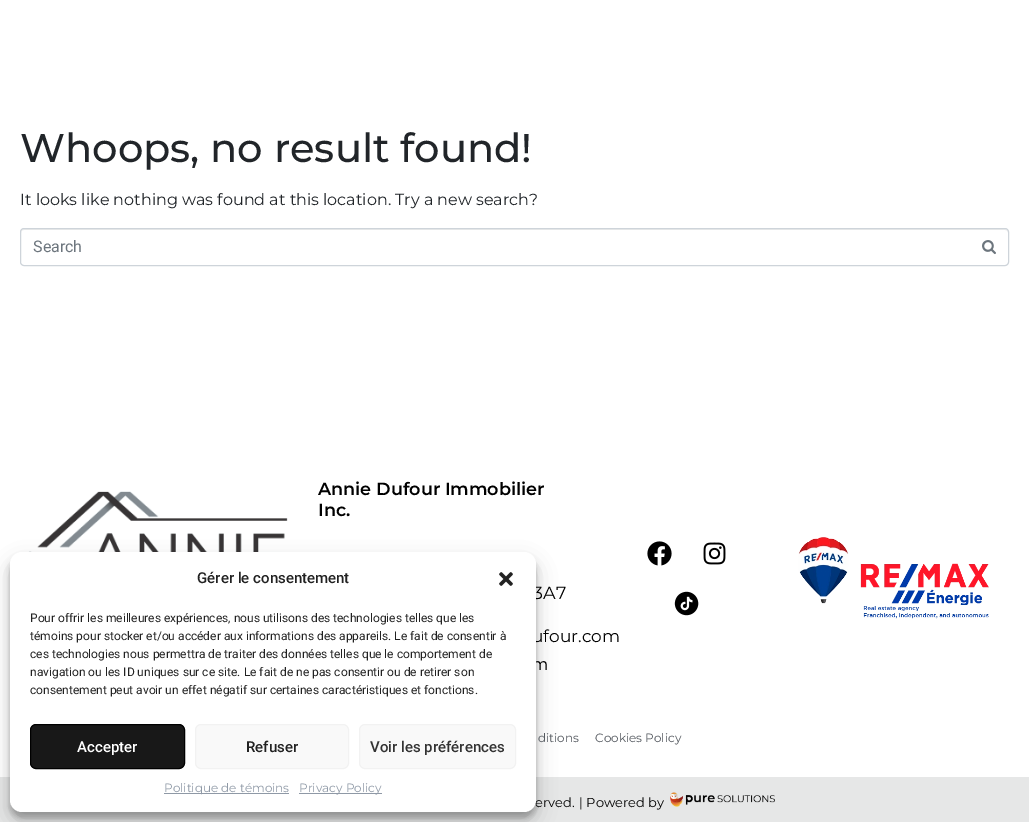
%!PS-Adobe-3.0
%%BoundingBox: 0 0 1029 822
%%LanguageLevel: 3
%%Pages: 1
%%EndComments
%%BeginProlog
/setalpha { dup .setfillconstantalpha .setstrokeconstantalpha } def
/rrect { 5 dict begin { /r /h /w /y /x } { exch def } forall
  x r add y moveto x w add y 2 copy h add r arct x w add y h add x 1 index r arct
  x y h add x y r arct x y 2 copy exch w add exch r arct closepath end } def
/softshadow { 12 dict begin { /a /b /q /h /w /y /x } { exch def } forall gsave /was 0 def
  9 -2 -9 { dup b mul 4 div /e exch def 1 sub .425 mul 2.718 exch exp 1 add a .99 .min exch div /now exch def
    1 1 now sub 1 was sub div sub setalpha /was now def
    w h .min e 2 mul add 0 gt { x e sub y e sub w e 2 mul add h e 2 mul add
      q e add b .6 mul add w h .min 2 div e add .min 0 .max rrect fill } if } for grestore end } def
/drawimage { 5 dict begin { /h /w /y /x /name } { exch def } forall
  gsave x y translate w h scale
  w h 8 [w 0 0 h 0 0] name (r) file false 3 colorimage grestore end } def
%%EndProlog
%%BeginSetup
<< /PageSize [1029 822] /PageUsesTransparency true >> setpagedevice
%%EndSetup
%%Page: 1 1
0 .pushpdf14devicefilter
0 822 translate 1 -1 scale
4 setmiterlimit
1 setgray
0 0 1029 822 rectfill
0.925 setgray
newpath 24 230 moveto 1005 230 lineto 1007 230 1008 231 1008 233 curveto 1008 231 1007 229 1005 229 curveto 24 229 lineto 22 229 21 231 21 233 curveto 21 231 22 230 24 230 curveto closepath fill
0.808 0.831 0.855 setrgbcolor
20.5 228.5 988 37 3.5 rrect stroke
(images/1.raw) 982 240 14 15 drawimage
(images/2.raw) 28 491 260 61 drawimage
(images/3.raw) 647 541 25 25 drawimage
(images/4.raw) 703 542 23 23 drawimage
(images/5.raw) 674 591 25 25 drawimage
(images/6.raw) 798 537 191 82 drawimage
0.902 0.906 0.906 setrgbcolor
0 777 1029 45 rectfill
(images/7.raw) 670 792 105 15 drawimage
0 setgray
10 558 526 260 12 3 0.23 softshadow
10 562 526 260 12 10 0.19 softshadow
/Montserrat-Medium [40 0 0 -40 0 0] selectfont
0.129 0.145 0.161 setrgbcolor
20 162 moveto (Whoops, no result found!) show
/Montserrat-Regular [16 0 0 -16 0 0] selectfont
20 205 moveto (It looks like nothing was found at this location. Try a new search?) show
/Roboto-Regular [16 0 0 -16 0 0] selectfont
0.424 0.459 0.49 setrgbcolor
33 252 moveto (Search) show
/Montserrat-SemiBold [17.6 0 0 -17.6 0 0] selectfont
0 setgray
318 495 moveto (Annie Dufour Immobilier) show
318 516 moveto (Inc.) show
/Montserrat-Regular [17.6 0 0 -17.6 0 0] selectfont
533 599 moveto (3A7) show
/Montserrat-Regular [17 0 0 -17 0 0] selectfont
532 642 moveto (ufour.com) show
/Gotham-Regular [17 0 0 -17 0 0] selectfont
532 670 moveto (m) show
/Montserrat-Regular [12 0 0 -12 0 0] selectfont
0.329 0.349 0.373 setrgbcolor
538 742 moveto (ditions) show
595 742 moveto (Cookies Policy) show
/Montserrat-Regular [13 0 0 -13 0 0] selectfont
0 setgray
535 807 moveto (erved.) show
579 807 moveto (| Powered by) show
1 setgray
10 552 526 260 12 rrect fill
/Roboto-Medium [15 0 0 -15 0 0] selectfont
0.133 setgray
197 583 moveto (Gérer le consentement) show
(images/8.raw) 499 572 14 14 drawimage
/Roboto-Regular [12 0 0 -12 0 0] selectfont
30 622 moveto (Pour offrir les meilleures expériences, nous utilisons des technologies telles que les) show
30 640 moveto (témoins pour stocker et/ou accéder aux informations des appareils. Le fait de consentir à) show
30 658 moveto (ces technologies nous permettra de traiter des données telles que le comportement de) show
30 676 moveto (navigation ou les ID uniques sur ce site. Le fait de ne pas consentir ou de retirer son) show
30 694 moveto (consentement peut avoir un effet négatif sur certaines caractéristiques et fonctions.) show
0.094 setgray
30.5 724.5 154 44 5.5 rrect gsave fill grestore
0 setgray
stroke
/Roboto-Medium [15 0 0 -15 0 0] selectfont
1 setgray
77 752 moveto (Accepter) show
0.976 setgray
195.5 724.5 153 44 5.5 rrect gsave fill grestore
0.949 setgray
stroke
0.133 setgray
246 752 moveto (Refuser) show
0.976 setgray
359.5 724.5 156 44 5.5 rrect gsave fill grestore
0.949 setgray
stroke
0.2 setgray
370 752 moveto (Voir les préférences) show
0.561 0.6 0.651 setrgbcolor
164 793 125 1 rectfill
/Montserrat-Regular [12 0 0 -12 0 0] selectfont
164 792 moveto (Politique de témoins) show
299 793 83 1 rectfill
299 792 moveto (Privacy Policy) show
.poppdf14devicefilter showpage
%%EOF
